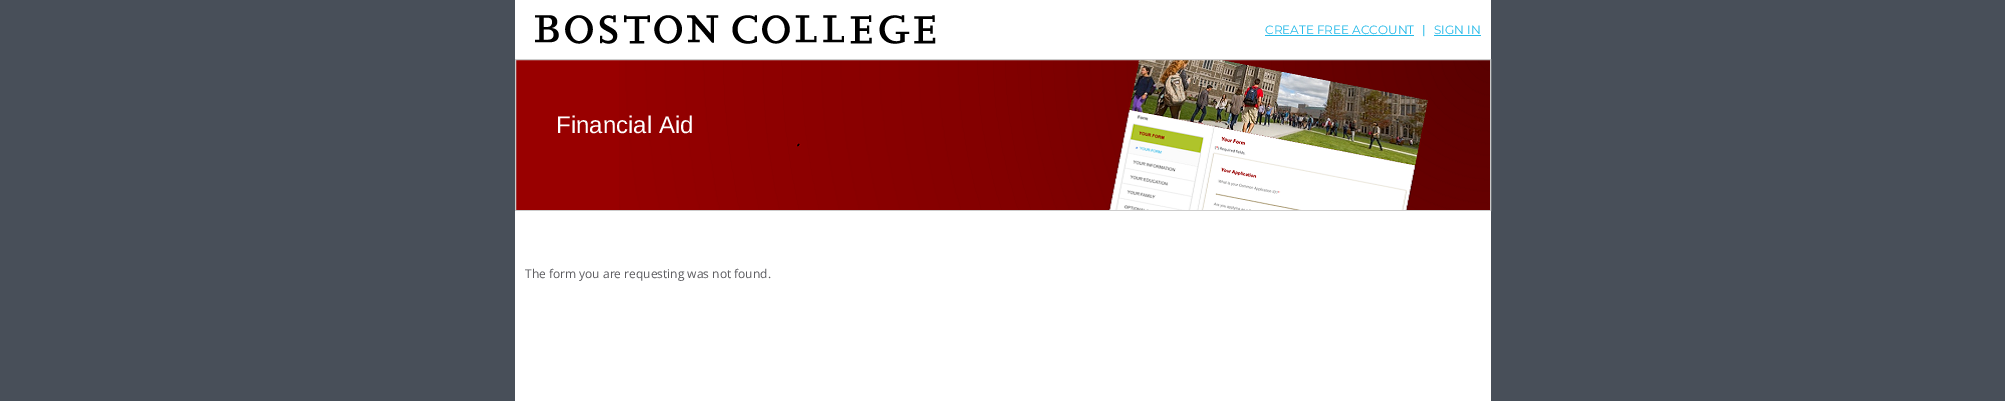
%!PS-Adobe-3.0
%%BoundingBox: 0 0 2005 401
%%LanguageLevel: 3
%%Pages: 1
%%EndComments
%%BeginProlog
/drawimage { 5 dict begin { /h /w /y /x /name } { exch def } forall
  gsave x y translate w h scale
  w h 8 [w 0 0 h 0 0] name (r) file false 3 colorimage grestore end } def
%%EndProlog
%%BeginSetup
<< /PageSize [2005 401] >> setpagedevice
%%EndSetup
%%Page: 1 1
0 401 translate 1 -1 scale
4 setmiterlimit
0.282 0.31 0.349 setrgbcolor
0 0 2005 401 rectfill
1 setgray
515 0 976 59 rectfill
(images/1.raw) 535 15 401 29 drawimage
0.149 0.729 0.914 setrgbcolor
1265 35 149 1 rectfill
1434 35 47 1 rectfill
0.6 0 0 setrgbcolor
516 60 103 150 rectfill
(images/2.raw) 619 60 871 150 drawimage
0.8 setgray
515.5 59.5 975 151 rectstroke
1 setgray
515 211 976 190 rectfill
/Montserrat-Regular [12 0 0 -12 0 0] selectfont
0.149 0.729 0.914 setrgbcolor
1265 34 moveto (CREATE FREE ACCOUNT) show
1422 34 moveto (|) show
1434 34 moveto (SIGN IN) show
/LiberationSans-Regular [24 0 0 -24 0 0] selectfont
1 setgray
556 133 moveto (Financial Aid) show
/OpenSans-Regular [12 0 0 -12 0 0] selectfont
0.361 0.361 0.376 setrgbcolor
525 278 moveto (The form you are requesting was not found.) show
showpage
%%EOF
